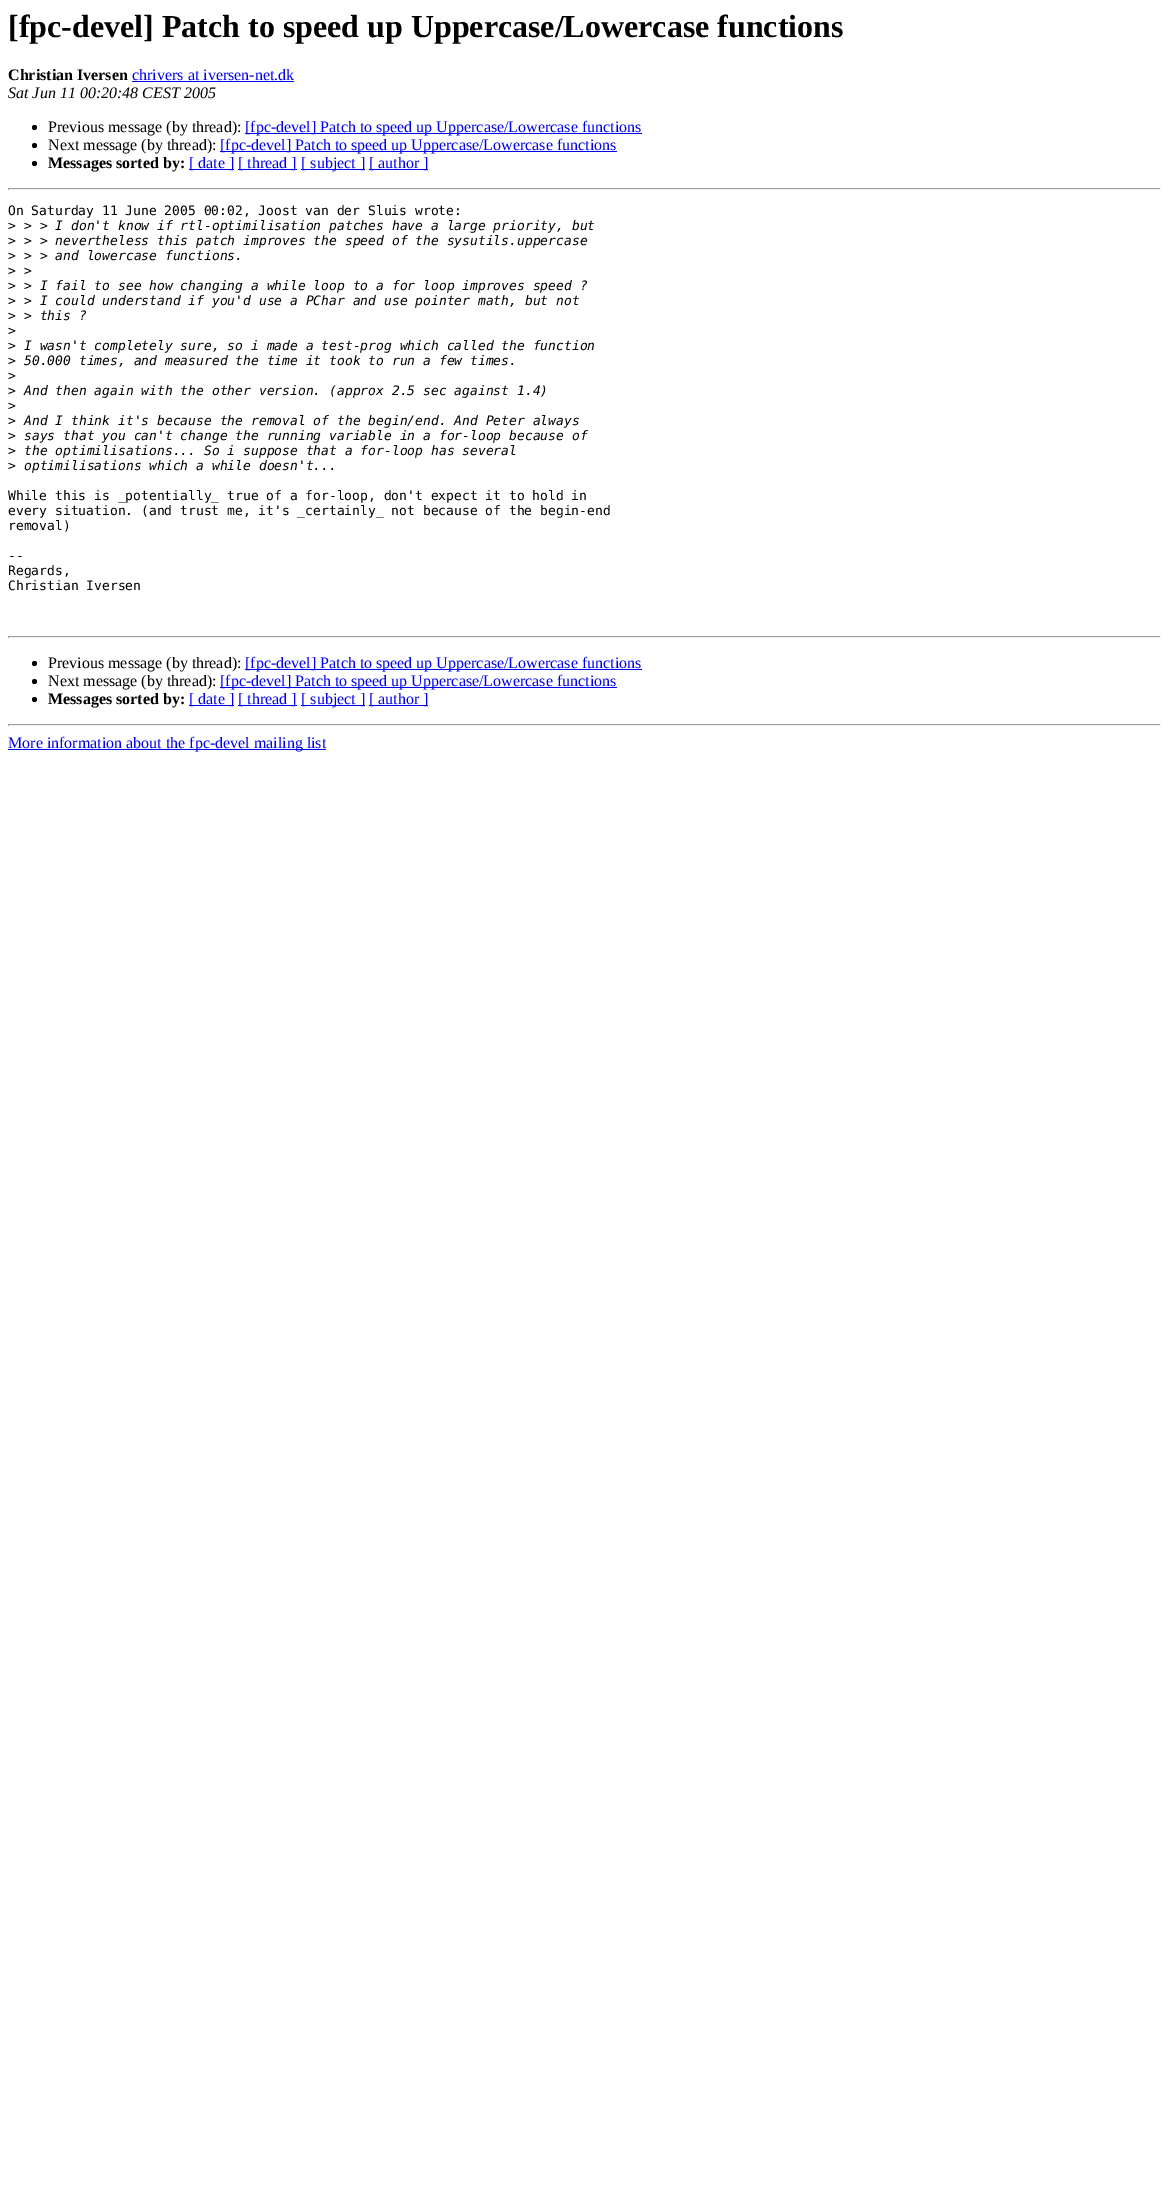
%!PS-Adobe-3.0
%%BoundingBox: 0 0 1169 2191
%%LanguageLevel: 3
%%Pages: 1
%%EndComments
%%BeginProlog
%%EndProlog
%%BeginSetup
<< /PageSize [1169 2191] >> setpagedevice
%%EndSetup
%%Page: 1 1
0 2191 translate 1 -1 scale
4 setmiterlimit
1 setgray
0 0 1169 2191 rectfill
0 0 0.933 setrgbcolor
132 81 162 1 rectfill
0 setgray
newpath 34.5 127.5 2.5 0 360 arc closepath fill
0 0 0.933 setrgbcolor
245 133 397 1 rectfill
0 setgray
newpath 34.5 145.5 2.5 0 360 arc closepath fill
0 0 0.933 setrgbcolor
220 151 397 1 rectfill
0 setgray
newpath 34.5 163.5 2.5 0 360 arc closepath fill
0 0 0.933 setrgbcolor
189 169 45 1 rectfill
238 169 59 1 rectfill
301 169 64 1 rectfill
369 169 59 1 rectfill
0.624 setgray
8 188 1153 1 rectfill
0.933 setgray
1160 188 1 2 rectfill
8 189 1153 1 rectfill
0.624 setgray
8 188 1 2 rectfill
8 636 1153 1 rectfill
0.933 setgray
1160 636 1 2 rectfill
8 637 1153 1 rectfill
0.624 setgray
8 636 1 2 rectfill
0 setgray
newpath 34.5 663.5 2.5 0 360 arc closepath fill
0 0 0.933 setrgbcolor
245 669 397 1 rectfill
0 setgray
newpath 34.5 681.5 2.5 0 360 arc closepath fill
0 0 0.933 setrgbcolor
220 687 397 1 rectfill
0 setgray
newpath 34.5 699.5 2.5 0 360 arc closepath fill
0 0 0.933 setrgbcolor
189 705 45 1 rectfill
238 705 59 1 rectfill
301 705 64 1 rectfill
369 705 59 1 rectfill
0.624 setgray
8 724 1153 1 rectfill
0.933 setgray
1160 724 1 2 rectfill
8 725 1153 1 rectfill
0.624 setgray
8 724 1 2 rectfill
0 0 0.933 setrgbcolor
8 749 318 1 rectfill
/LiberationSerif-Bold [32 0 0 -32 0 0] selectfont
0 setgray
8 37 moveto ([fpc-devel] Patch to speed up Uppercase/Lowercase functions) show
/LiberationSerif-Bold [16 0 0 -16 0 0] selectfont
8 80 moveto (Christian Iversen) show
/LiberationSerif-Regular [16 0 0 -16 0 0] selectfont
0 0 0.933 setrgbcolor
132 80 moveto (chrivers at iversen-net.dk) show
/LiberationSerif-Italic [16 0 0 -16 0 0] selectfont
0 setgray
8 98 moveto (Sat Jun 11 00:20:48 CEST 2005) show
/LiberationSerif-Regular [16 0 0 -16 0 0] selectfont
48 132 moveto (Previous message \(by thread\):) show
0 0 0.933 setrgbcolor
245 132 moveto ([fpc-devel] Patch to speed up Uppercase/Lowercase functions) show
0 setgray
48 150 moveto (Next message \(by thread\):) show
0 0 0.933 setrgbcolor
220 150 moveto ([fpc-devel] Patch to speed up Uppercase/Lowercase functions) show
/LiberationSerif-Bold [16 0 0 -16 0 0] selectfont
0 setgray
48 168 moveto (Messages sorted by:) show
/LiberationSerif-Regular [16 0 0 -16 0 0] selectfont
0 0 0.933 setrgbcolor
189 168 moveto ([ date ]) show
238 168 moveto ([ thread ]) show
301 168 moveto ([ subject ]) show
369 168 moveto ([ author ]) show
/DejaVuSansMono-Regular [13 0 0 -13 0 0] selectfont
0 setgray
8 215 moveto (On Saturday 11 June 2005 00:02, Joost van der Sluis wrote:) show
8 230 moveto (>) show
/DejaVuSansMono-Italic [13 0 0 -13 0 0] selectfont
24 230 moveto (> > I don't know if rtl-optimilisation patches have a large priority, but) show
/DejaVuSansMono-Regular [13 0 0 -13 0 0] selectfont
8 245 moveto (>) show
/DejaVuSansMono-Italic [13 0 0 -13 0 0] selectfont
24 245 moveto (> > nevertheless this patch improves the speed of the sysutils.uppercase) show
/DejaVuSansMono-Regular [13 0 0 -13 0 0] selectfont
8 260 moveto (>) show
/DejaVuSansMono-Italic [13 0 0 -13 0 0] selectfont
24 260 moveto (> > and lowercase functions.) show
/DejaVuSansMono-Regular [13 0 0 -13 0 0] selectfont
8 275 moveto (>) show
/DejaVuSansMono-Italic [13 0 0 -13 0 0] selectfont
24 275 moveto (>) show
/DejaVuSansMono-Regular [13 0 0 -13 0 0] selectfont
8 290 moveto (>) show
/DejaVuSansMono-Italic [13 0 0 -13 0 0] selectfont
24 290 moveto (> I fail to see how changing a while loop to a for loop improves speed ?) show
/DejaVuSansMono-Regular [13 0 0 -13 0 0] selectfont
8 305 moveto (>) show
/DejaVuSansMono-Italic [13 0 0 -13 0 0] selectfont
24 305 moveto (> I could understand if you'd use a PChar and use pointer math, but not) show
/DejaVuSansMono-Regular [13 0 0 -13 0 0] selectfont
8 320 moveto (>) show
/DejaVuSansMono-Italic [13 0 0 -13 0 0] selectfont
24 320 moveto (> this ?) show
/DejaVuSansMono-Regular [13 0 0 -13 0 0] selectfont
8 335 moveto (>) show
8 350 moveto (>) show
/DejaVuSansMono-Italic [13 0 0 -13 0 0] selectfont
24 350 moveto (I wasn't completely sure, so i made a test-prog which called the function) show
/DejaVuSansMono-Regular [13 0 0 -13 0 0] selectfont
8 365 moveto (>) show
/DejaVuSansMono-Italic [13 0 0 -13 0 0] selectfont
24 365 moveto (50.000 times, and measured the time it took to run a few times.) show
/DejaVuSansMono-Regular [13 0 0 -13 0 0] selectfont
8 380 moveto (>) show
8 395 moveto (>) show
/DejaVuSansMono-Italic [13 0 0 -13 0 0] selectfont
24 395 moveto (And then again with the other version. \(approx 2.5 sec against 1.4\)) show
/DejaVuSansMono-Regular [13 0 0 -13 0 0] selectfont
8 410 moveto (>) show
8 425 moveto (>) show
/DejaVuSansMono-Italic [13 0 0 -13 0 0] selectfont
24 425 moveto (And I think it's because the removal of the begin/end. And Peter always) show
/DejaVuSansMono-Regular [13 0 0 -13 0 0] selectfont
8 440 moveto (>) show
/DejaVuSansMono-Italic [13 0 0 -13 0 0] selectfont
24 440 moveto (says that you can't change the running variable in a for-loop because of) show
/DejaVuSansMono-Regular [13 0 0 -13 0 0] selectfont
8 455 moveto (>) show
/DejaVuSansMono-Italic [13 0 0 -13 0 0] selectfont
24 455 moveto (the optimilisations... So i suppose that a for-loop has several) show
/DejaVuSansMono-Regular [13 0 0 -13 0 0] selectfont
8 470 moveto (>) show
/DejaVuSansMono-Italic [13 0 0 -13 0 0] selectfont
24 470 moveto (optimilisations which a while doesn't...) show
/DejaVuSansMono-Regular [13 0 0 -13 0 0] selectfont
8 500 moveto (While this is _potentially_ true of a for-loop, don't expect it to hold in) show
8 515 moveto (every situation. \(and trust me, it's _certainly_ not because of the begin-end) show
8 530 moveto (removal\)) show
8 560 moveto (--) show
8 575 moveto (Regards,) show
8 590 moveto (Christian Iversen) show
/LiberationSerif-Regular [16 0 0 -16 0 0] selectfont
48 668 moveto (Previous message \(by thread\):) show
0 0 0.933 setrgbcolor
245 668 moveto ([fpc-devel] Patch to speed up Uppercase/Lowercase functions) show
0 setgray
48 686 moveto (Next message \(by thread\):) show
0 0 0.933 setrgbcolor
220 686 moveto ([fpc-devel] Patch to speed up Uppercase/Lowercase functions) show
/LiberationSerif-Bold [16 0 0 -16 0 0] selectfont
0 setgray
48 704 moveto (Messages sorted by:) show
/LiberationSerif-Regular [16 0 0 -16 0 0] selectfont
0 0 0.933 setrgbcolor
189 704 moveto ([ date ]) show
238 704 moveto ([ thread ]) show
301 704 moveto ([ subject ]) show
369 704 moveto ([ author ]) show
8 748 moveto (More information about the fpc-devel mailing list) show
showpage
%%EOF
